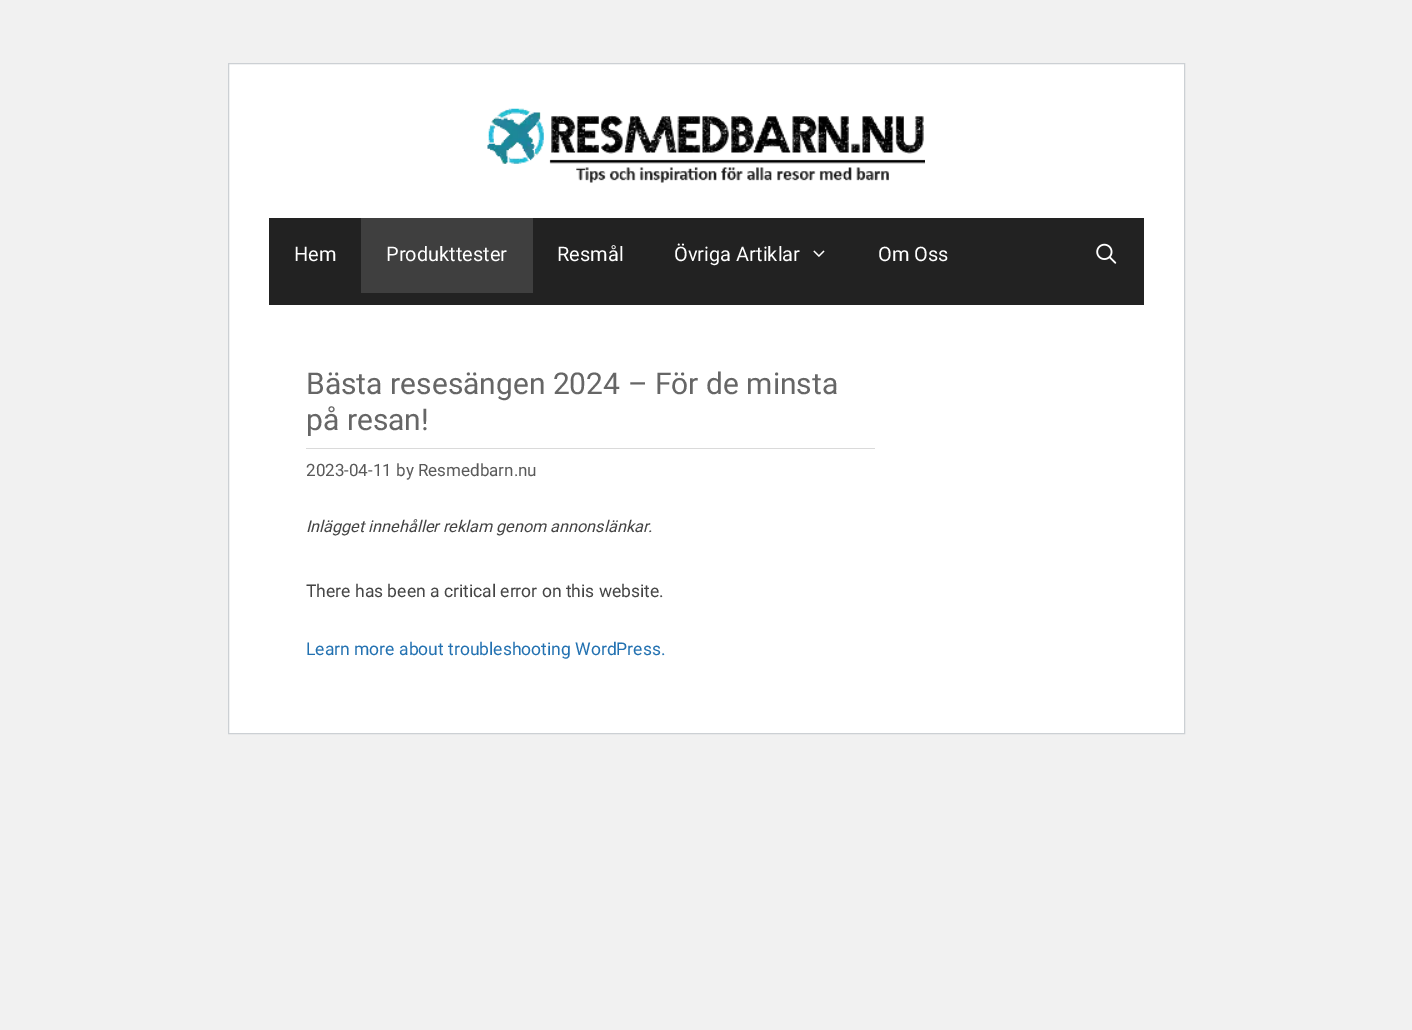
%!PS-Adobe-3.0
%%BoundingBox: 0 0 1412 1030
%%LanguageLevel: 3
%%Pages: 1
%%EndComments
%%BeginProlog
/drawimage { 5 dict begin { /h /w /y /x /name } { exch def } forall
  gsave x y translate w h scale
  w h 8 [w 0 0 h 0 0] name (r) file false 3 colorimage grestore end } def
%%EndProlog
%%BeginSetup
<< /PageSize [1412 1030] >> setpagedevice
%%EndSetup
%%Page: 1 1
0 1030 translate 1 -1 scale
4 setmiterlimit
0.945 setgray
0 0 1412 1030 rectfill
1 setgray
newpath 228.5 63.5 moveto 1184.5 63.5 lineto 1184.5 733.5 lineto 228.5 733.5 lineto closepath gsave fill grestore
0.8 0.816 0.831 setrgbcolor
stroke
(images/1.raw) 487 108 438 75 drawimage
0.133 setgray
269 218 875 87 rectfill
0.247 setgray
361 218 172 75 rectfill
(images/2.raw) 813 250 12 7 drawimage
(images/3.raw) 1096 243 21 21 drawimage
0.855 setgray
306 448 569 1 rectfill
/Roboto-Regular [20 0 0 -20 0 0] selectfont
1 setgray
294 261 moveto (Hem) show
386 261 moveto (Produkttester) show
557 261 moveto (Resmål) show
674 261 moveto (Övriga Artiklar) show
878 261 moveto (Om Oss) show
/Roboto-Regular [30 0 0 -30 0 0] selectfont
0.4 setgray
306 394 moveto (Bästa resesängen 2024 – För de minsta) show
306 430 moveto (på resan!) show
/Roboto-Regular [17 0 0 -17 0 0] selectfont
0.349 setgray
306 476 moveto (2023-04-11 by Resmedbarn.nu) show
/Roboto-Italic [16.25 0 0 -16.25 0 0] selectfont
0.267 setgray
306 532 moveto (Inlägget innehåller reklam genom annonslänkar.) show
/Roboto-Regular [17.5 0 0 -17.5 0 0] selectfont
306 597 moveto (There has been a critical error on this website.) show
0.133 0.443 0.694 setrgbcolor
306 655 moveto (Learn more about troubleshooting WordPress.) show
showpage
%%EOF
